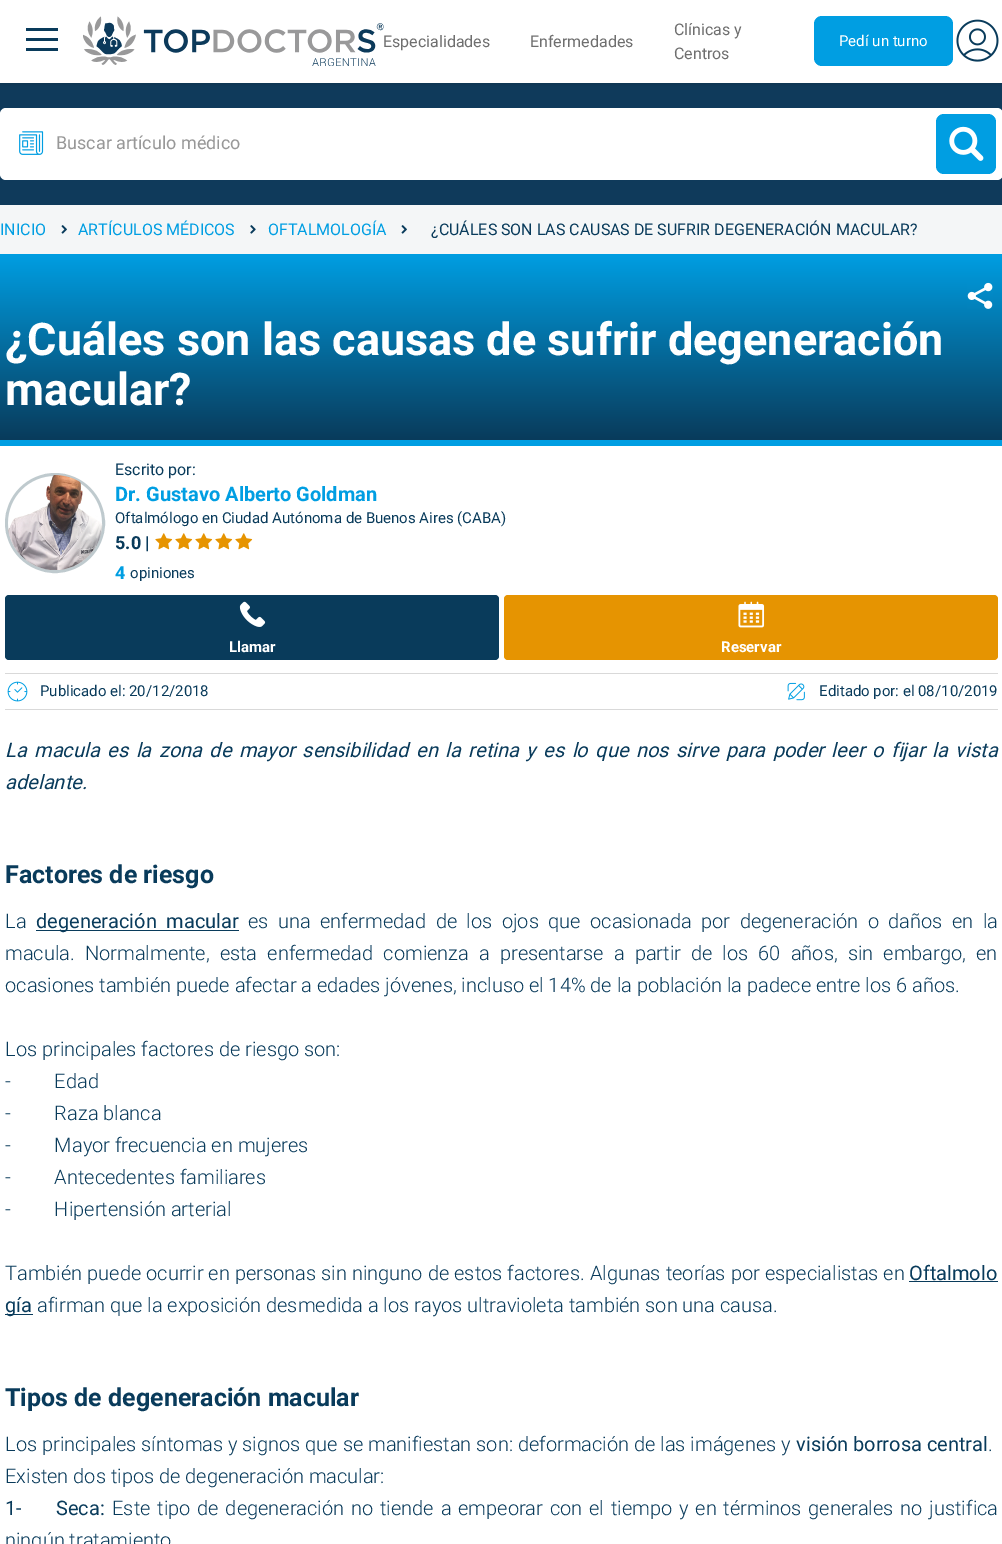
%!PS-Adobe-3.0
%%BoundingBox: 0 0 1002 1544
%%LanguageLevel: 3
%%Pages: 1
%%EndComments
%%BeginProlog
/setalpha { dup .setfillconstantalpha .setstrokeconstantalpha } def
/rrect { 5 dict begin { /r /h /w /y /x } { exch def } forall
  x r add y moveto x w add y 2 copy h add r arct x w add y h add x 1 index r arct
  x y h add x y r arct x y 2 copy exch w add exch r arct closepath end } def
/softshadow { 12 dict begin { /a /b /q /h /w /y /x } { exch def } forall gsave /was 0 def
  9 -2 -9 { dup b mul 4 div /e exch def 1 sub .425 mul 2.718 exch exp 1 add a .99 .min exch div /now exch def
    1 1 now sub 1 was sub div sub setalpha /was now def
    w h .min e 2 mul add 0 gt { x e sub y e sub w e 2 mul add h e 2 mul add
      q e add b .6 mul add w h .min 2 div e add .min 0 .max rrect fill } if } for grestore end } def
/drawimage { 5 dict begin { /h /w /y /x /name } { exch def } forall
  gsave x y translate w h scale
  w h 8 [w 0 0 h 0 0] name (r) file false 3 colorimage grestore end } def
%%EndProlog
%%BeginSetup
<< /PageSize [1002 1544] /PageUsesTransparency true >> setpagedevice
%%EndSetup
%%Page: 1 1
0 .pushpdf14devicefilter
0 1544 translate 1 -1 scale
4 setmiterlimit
0.957 0.965 0.969 setrgbcolor
0 0 1002 1544 rectfill
0.059 0.227 0.357 setrgbcolor
0 83 1002 122 rectfill
0.039 setgray
0 3 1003 82 0 2 0.1 softshadow
1 setgray
0 0 1002 83 rectfill
0.035 0.231 0.357 setrgbcolor
26 28 32 3 rectfill
26 38 32 3 rectfill
26 48 32 3 rectfill
(images/1.raw) 83 16 301 50 drawimage
0 0.62 0.886 setrgbcolor
814 16 139 50 8 rrect fill
(images/2.raw) 956 19 43 43 drawimage
1 setgray
0 108 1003 72 6 rrect fill
(images/3.raw) 19 131 25 24 drawimage
0 0.62 0.886 setrgbcolor
936 114 60 60 8 rrect fill
(images/4.raw) 949 126 35 35 drawimage
(images/5.raw) 61 225 6 9 drawimage
(images/6.raw) 250 225 6 9 drawimage
(images/5.raw) 401 225 6 9 drawimage
1 setgray
0 446 1002 1098 rectfill
gsave newpath 0 254 moveto 1002 254 lineto 1002 440 lineto 0 440 lineto closepath clip newpath
<< /ShadingType 2 /ColorSpace /DeviceRGB /Coords [501 254 501 440] /Extend [true true] /Function << /FunctionType 2 /Domain [0 1] /C0 [0 0.62 0.886] /C1 [0.035 0.231 0.357] /N 1 >> >> shfill grestore
0 0.62 0.886 setrgbcolor
0 440 1002 6 rectfill
(images/7.raw) 967 282 26 27 drawimage
0.749 0.792 0.808 setrgbcolor
3 setlinewidth
newpath 55 523 48.5 0 360 arc closepath stroke
(images/8.raw) 8 475 95 95 drawimage
(images/9.raw) 155 533 18 17 drawimage
(images/9.raw) 175 533 18 17 drawimage
(images/9.raw) 195 533 18 17 drawimage
(images/9.raw) 215 533 18 17 drawimage
(images/9.raw) 235 533 18 17 drawimage
0.035 0.231 0.357 setrgbcolor
5 595 494 65 4 rrect fill
(images/10.raw) 239 601 27 26 drawimage
0.902 0.58 0.004 setrgbcolor
504 595 494 65 4 rrect fill
(images/11.raw) 738 601 27 27 drawimage
0.851 setgray
5 673 993 1 rectfill
5 709 993 1 rectfill
(images/12.raw) 7 681 21 21 drawimage
(images/13.raw) 787 682 18 19 drawimage
0.035 0.231 0.357 setrgbcolor
36 930 203 1 rectfill
909 1281 89 1 rectfill
5 1314 28 1 rectfill
/Roboto-Regular [16 0 0 -16 0 0] selectfont
0.435 setgray
383 47 moveto (Especialidades) show
530 47 moveto (Enfermedades) show
674 35 moveto (Clínicas y) show
674 59 moveto (Centros) show
/Roboto-Regular [15 0 0 -15 0 0] selectfont
1 setgray
839 46 moveto (Pedí un turno) show
/Roboto-Regular [18 0 0 -18 0 0] selectfont
0.596 setgray
56 149 moveto (Buscar artículo médico) show
/Roboto-Regular [16 0 0 -16 0 0] selectfont
0 0.62 0.886 setrgbcolor
0 235 moveto (INICIO) show
78 235 moveto (ARTÍCULOS MÉDICOS) show
268 235 moveto (OFTALMOLOGÍA) show
0.035 0.231 0.357 setrgbcolor
431 235 moveto (¿CUÁLES SON LAS CAUSAS DE SUFRIR DEGENERACIÓN MACULAR?) show
/Roboto-Bold [45 0 0 -45 0 0] selectfont
1 setgray
5 355 moveto (¿Cuáles son las causas de sufrir degeneración) show
5 405 moveto (macular?) show
/Roboto-Regular [16 0 0 -16 0 0] selectfont
0.035 0.231 0.357 setrgbcolor
115 475 moveto (Escrito por:) show
/Roboto-Bold [20 0 0 -20 0 0] selectfont
0 0.62 0.886 setrgbcolor
115 501 moveto (Dr. Gustavo Alberto Goldman) show
/Roboto-Regular [15 0 0 -15 0 0] selectfont
0.035 0.231 0.357 setrgbcolor
115 523 moveto (Oftalmólogo en Ciudad Autónoma de Buenos Aires \(CABA\)) show
/Roboto-Bold [18 0 0 -18 0 0] selectfont
115 549 moveto (5.0 |) show
0 0.62 0.886 setrgbcolor
115 579 moveto (4) show
/Roboto-Regular [15 0 0 -15 0 0] selectfont
0.035 0.231 0.357 setrgbcolor
130 578 moveto (opiniones) show
/Roboto-Bold [15 0 0 -15 0 0] selectfont
1 setgray
229 652 moveto (Llamar) show
721 652 moveto (Reservar) show
/Roboto-Regular [15 0 0 -15 0 0] selectfont
0.035 0.231 0.357 setrgbcolor
40 696 moveto (Publicado el: 20/12/2018) show
819 696 moveto (Editado por: el 08/10/2019) show
/Roboto-Italic [20 0 0 -20 0 0] selectfont
5 757 moveto 2.5 0 32 (La macula es la zona de mayor sensibilidad en la retina y es lo que nos sirve para poder leer o fijar la vista) widthshow
5 789 moveto (adelante.) show
/Roboto-Bold [25 0 0 -25 0 0] selectfont
5 883 moveto (Factores de riesgo) show
/Roboto-Light [20 0 0 -20 0 0] selectfont
5 928 moveto (La) show
/Roboto-Regular [20 0 0 -20 0 0] selectfont
36 928 moveto 4.6 0 32 (degeneración macular) widthshow
/Roboto-Light [20 0 0 -20 0 0] selectfont
248 928 moveto 4.6 0 32 (es una enfermedad de los ojos que ocasionada por degeneración o daños en la) widthshow
5 960 moveto 5.25 0 32 (macula. Normalmente, esta enfermedad comienza a presentarse a partir de los 60 años, sin embargo, en) widthshow
5 992 moveto (ocasiones también puede afectar a edades jóvenes, incluso el 14% de la población la padece entre los 6 años.) show
5 1056 moveto (Los principales factores de riesgo son:) show
5 1088 moveto (-         Edad) show
5 1120 moveto (-         Raza blanca) show
5 1152 moveto (-         Mayor frecuencia en mujeres) show
5 1184 moveto (-         Antecedentes familiares) show
5 1216 moveto (-         Hipertensión arterial) show
5 1280 moveto 0.2 0 32 (También puede ocurrir en personas sin ninguno de estos factores. Algunas teorías por especialistas en) widthshow
/Roboto-Regular [20 0 0 -20 0 0] selectfont
909 1280 moveto (Oftalmolo) show
5 1312 moveto (gía) show
/Roboto-Light [20 0 0 -20 0 0] selectfont
37 1312 moveto (afirman que la exposición desmedida a los rayos ultravioleta también son una causa.) show
/Roboto-Bold [25 0 0 -25 0 0] selectfont
5 1406 moveto (Tipos de degeneración macular) show
/Roboto-Light [20 0 0 -20 0 0] selectfont
5 1451 moveto (Los principales síntomas y signos que se manifiestan son: deformación de las imágenes y) show
/Roboto-Regular [20 0 0 -20 0 0] selectfont
796 1451 moveto (visión borrosa central) show
/Roboto-Light [20 0 0 -20 0 0] selectfont
988 1451 moveto (.) show
5 1483 moveto (Existen dos tipos de degeneración macular:) show
/Roboto-Regular [20 0 0 -20 0 0] selectfont
5 1515 moveto (1-) show
56 1515 moveto (Seca:) show
/Roboto-Light [20 0 0 -20 0 0] selectfont
112 1515 moveto 2 0 32 (Este tipo de degeneración no tiende a empeorar con el tiempo y en términos generales no justifica) widthshow
5 1547 moveto (ningún tratamiento) show
.poppdf14devicefilter showpage
%%EOF
